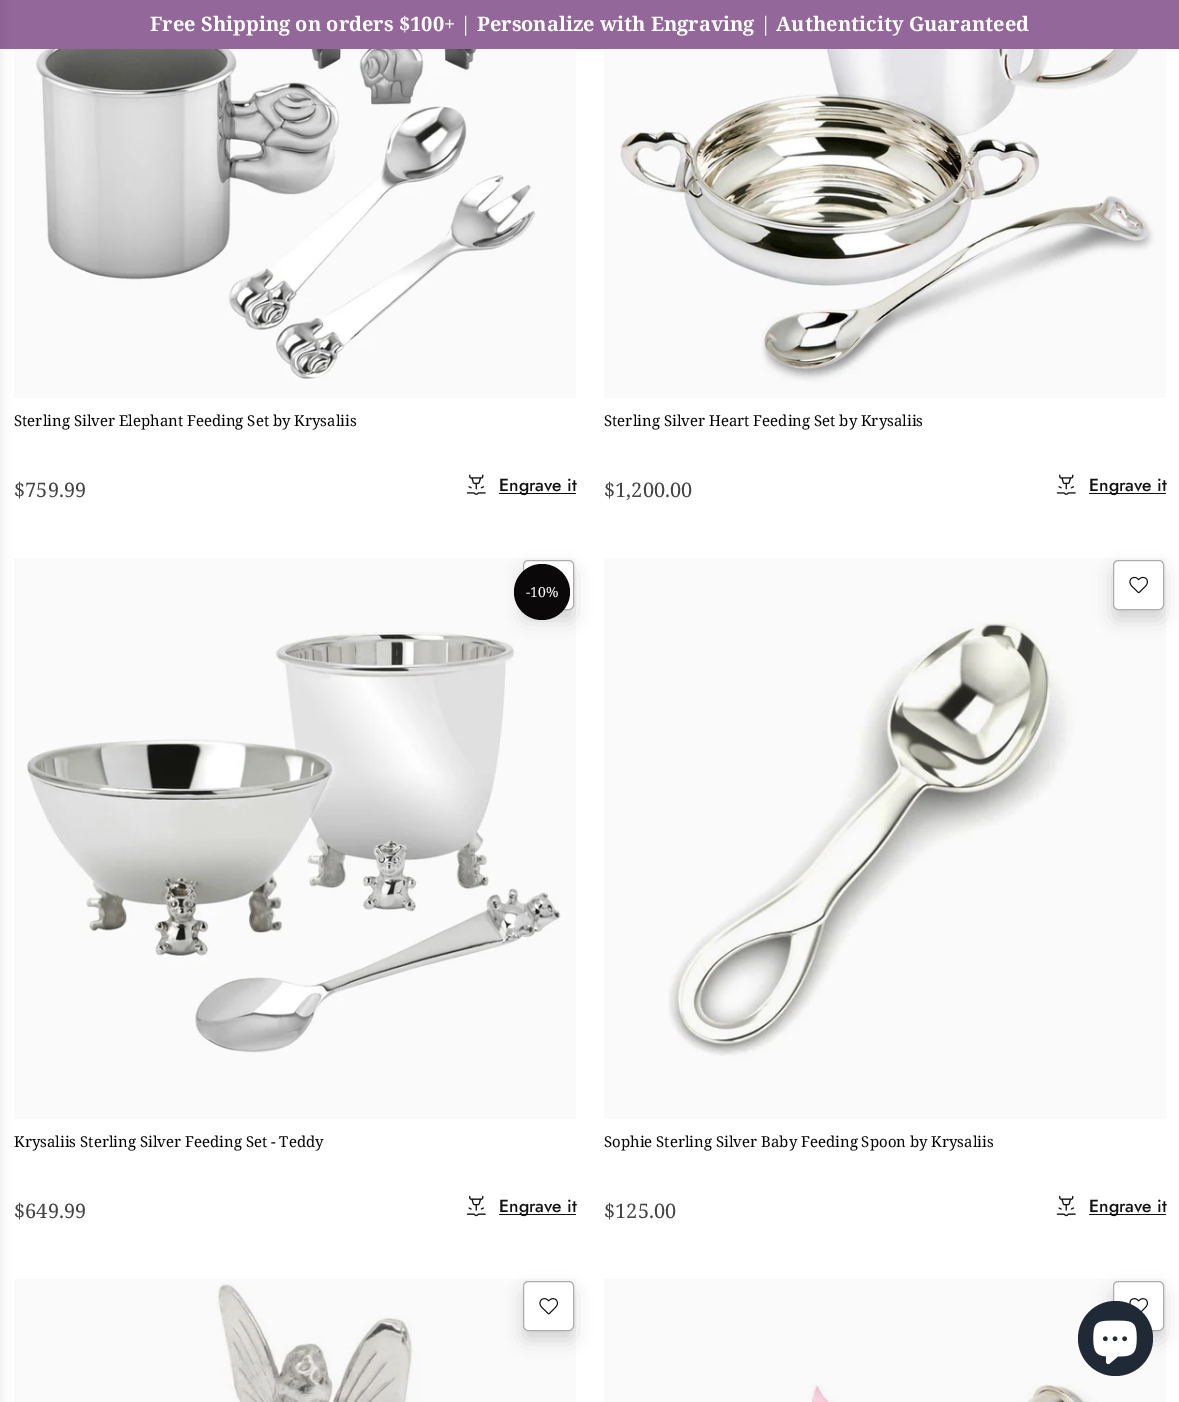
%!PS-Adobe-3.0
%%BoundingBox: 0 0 1179 1402
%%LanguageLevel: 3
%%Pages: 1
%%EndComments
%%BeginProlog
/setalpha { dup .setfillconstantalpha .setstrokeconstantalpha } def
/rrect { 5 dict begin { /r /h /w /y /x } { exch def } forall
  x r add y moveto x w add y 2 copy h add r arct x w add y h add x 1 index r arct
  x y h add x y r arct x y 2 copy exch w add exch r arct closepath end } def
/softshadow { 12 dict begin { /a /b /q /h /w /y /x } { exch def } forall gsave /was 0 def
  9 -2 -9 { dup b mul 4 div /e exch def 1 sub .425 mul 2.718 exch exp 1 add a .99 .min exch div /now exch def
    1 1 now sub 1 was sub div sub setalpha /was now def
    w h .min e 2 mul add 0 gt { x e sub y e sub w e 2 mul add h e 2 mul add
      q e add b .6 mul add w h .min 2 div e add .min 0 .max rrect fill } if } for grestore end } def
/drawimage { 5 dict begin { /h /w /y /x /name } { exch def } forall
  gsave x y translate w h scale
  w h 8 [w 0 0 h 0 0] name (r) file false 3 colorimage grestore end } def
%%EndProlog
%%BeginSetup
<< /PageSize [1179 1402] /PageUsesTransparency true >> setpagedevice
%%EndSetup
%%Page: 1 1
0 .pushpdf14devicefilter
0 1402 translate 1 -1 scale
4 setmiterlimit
1 setgray
0 0 1179 1402 rectfill
0.58 0.404 0.604 setrgbcolor
0 0 1179 49 rectfill
(images/1.raw) 14 49 562 349 drawimage
(images/4.raw) 14 558 562 561 drawimage
(images/9.raw) 14 1279 562 123 drawimage
0 setgray
-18 0 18 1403 0 6 0.1 softshadow
(images/2.raw) 466 474 20 21 drawimage
0.067 setgray
499 493 77 1 rectfill
(images/3.raw) 604 49 562 349 drawimage
(images/2.raw) 1056 474 20 21 drawimage
1089 493 77 1 rectfill
0 setgray
523 569 51 51 5 9 0.16 softshadow
1 setgray
523.5 560.5 50 49 4.5 rrect gsave fill grestore
0.682 0.675 0.678 setrgbcolor
stroke
0.039 0.031 0.031 setrgbcolor
newpath 542 592 28 0 360 arc closepath fill
(images/5.raw) 466 1195 20 22 drawimage
0.067 setgray
499 1214 77 1 rectfill
(images/7.raw) 604 558 562 561 drawimage
0 setgray
1113 569 51 51 5 9 0.16 softshadow
1 setgray
1113.5 560.5 50 49 4.5 rrect gsave fill grestore
0.682 0.675 0.678 setrgbcolor
stroke
(images/6.raw) 1129 576 19 18 drawimage
(images/5.raw) 1056 1195 20 22 drawimage
0.067 setgray
1089 1214 77 1 rectfill
0 setgray
523 1290 51 50 5 9 0.16 softshadow
1 setgray
523.5 1281.5 50 49 4.5 rrect gsave fill grestore
0.682 0.675 0.678 setrgbcolor
stroke
(images/8.raw) 539 1298 19 17 drawimage
(images/11.raw) 604 1279 562 123 drawimage
0 setgray
1113 1290 51 50 5 9 0.16 softshadow
1 setgray
1113.5 1281.5 50 49 4.5 rrect gsave fill grestore
0.682 0.675 0.678 setrgbcolor
stroke
(images/10.raw) 1129 1298 19 14 drawimage
0.125 0.165 0.212 setrgbcolor
newpath 1115.5 1338.5 37.5 0 360 arc closepath fill
(images/12.raw) 1093 1320 44 45 drawimage
/NotoSerif-Bold [20 0 0 -20 0 0] selectfont
1 setgray
150 31 moveto (Free Shipping on orders $100+ | Personalize with Engraving | Authenticity Guaranteed) show
/NotoSerif-Regular [15 0 0 -15 0 0] selectfont
0 setgray
14 426 moveto (Sterling Silver Elephant Feeding Set by Krysaliis) show
/NotoSerif-Regular [20 0 0 -20 0 0] selectfont
0.267 setgray
14 497 moveto ($759.99) show
/Jost-Medium [17.5 0 0 -17.5 0 0] selectfont
0.067 setgray
499 491 moveto (Engrave it) show
/NotoSerif-Regular [15 0 0 -15 0 0] selectfont
0 setgray
604 426 moveto (Sterling Silver Heart Feeding Set by Krysaliis) show
/NotoSerif-Regular [20 0 0 -20 0 0] selectfont
0.267 setgray
604 497 moveto ($1,200.00) show
/Jost-Medium [17.5 0 0 -17.5 0 0] selectfont
0.067 setgray
1089 491 moveto (Engrave it) show
/NotoSerif-Regular [14 0 0 -14 0 0] selectfont
1 setgray
526 597 moveto (-10%) show
/NotoSerif-Regular [15 0 0 -15 0 0] selectfont
0 setgray
14 1147 moveto (Krysaliis Sterling Silver Feeding Set - Teddy) show
/NotoSerif-Regular [20 0 0 -20 0 0] selectfont
0.267 setgray
14 1218 moveto ($649.99) show
/Jost-Medium [17.5 0 0 -17.5 0 0] selectfont
0.067 setgray
499 1212 moveto (Engrave it) show
/NotoSerif-Regular [15 0 0 -15 0 0] selectfont
0 setgray
604 1147 moveto (Sophie Sterling Silver Baby Feeding Spoon by Krysaliis) show
/NotoSerif-Regular [20 0 0 -20 0 0] selectfont
0.267 setgray
604 1218 moveto ($125.00) show
/Jost-Medium [17.5 0 0 -17.5 0 0] selectfont
0.067 setgray
1089 1212 moveto (Engrave it) show
.poppdf14devicefilter showpage
%%EOF
